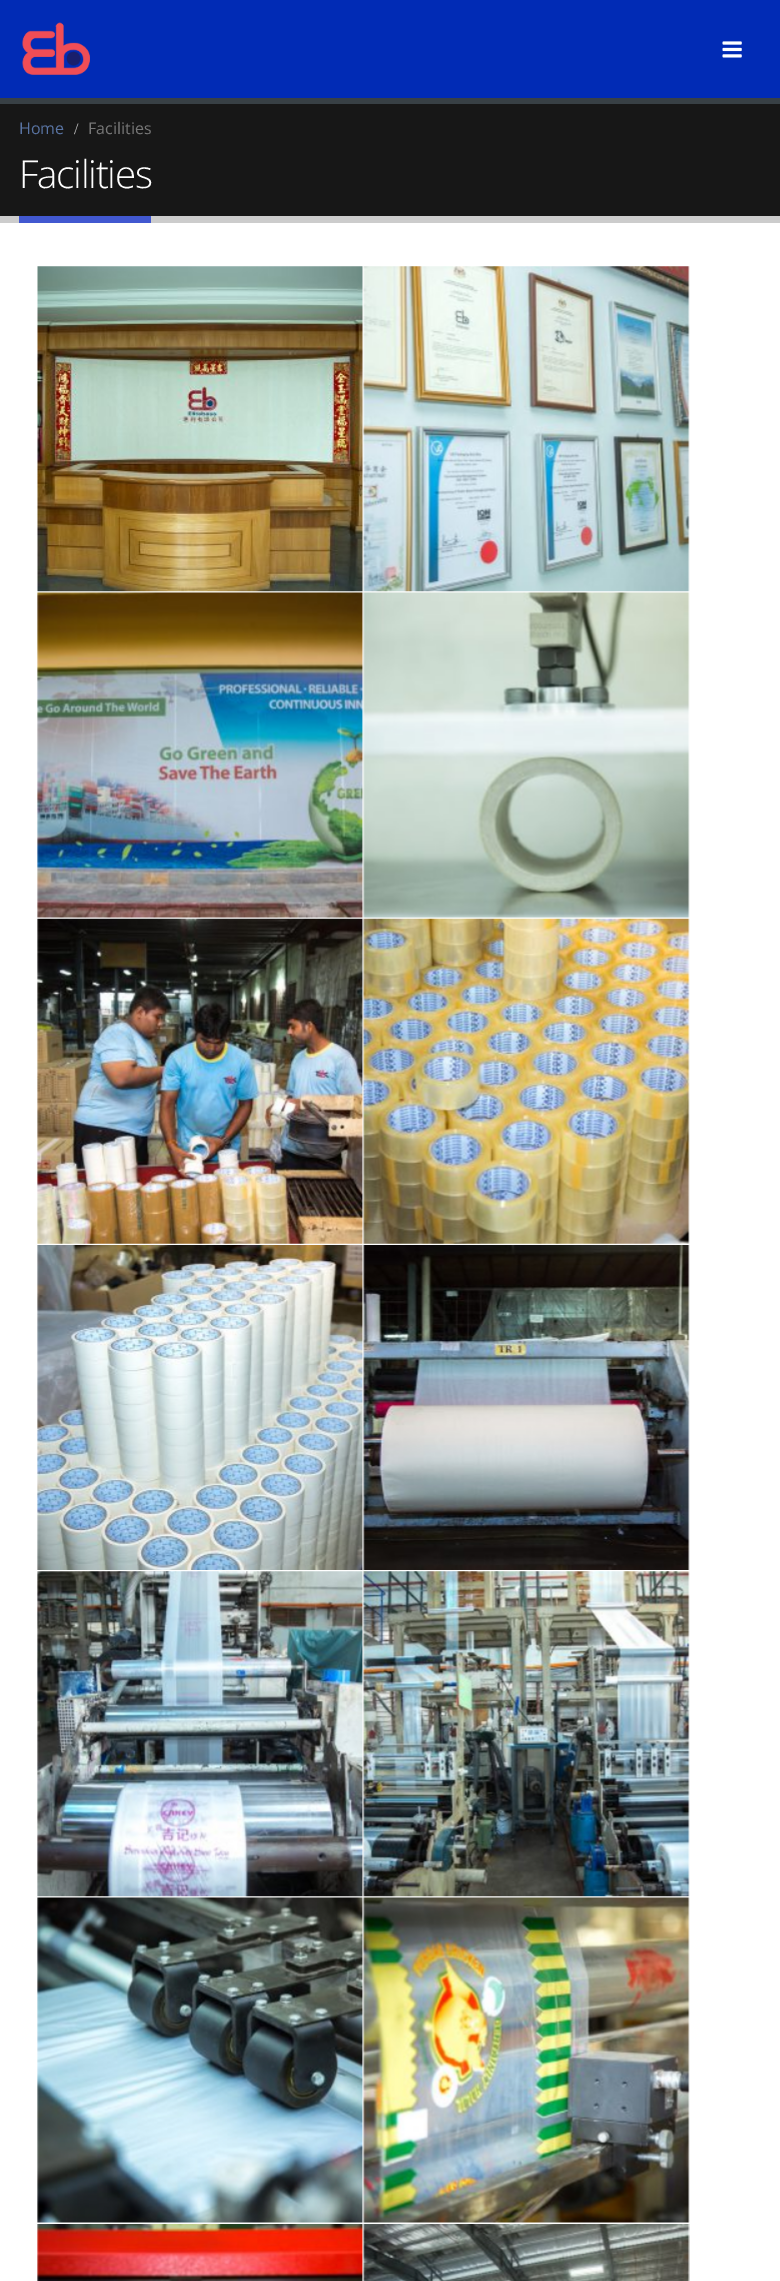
%!PS-Adobe-3.0
%%BoundingBox: 0 0 780 2281
%%LanguageLevel: 3
%%Pages: 1
%%EndComments
%%BeginProlog
/drawimage { 5 dict begin { /h /w /y /x /name } { exch def } forall
  gsave x y translate w h scale
  w h 8 [w 0 0 h 0 0] name (r) file false 3 colorimage grestore end } def
%%EndProlog
%%BeginSetup
<< /PageSize [780 2281] >> setpagedevice
%%EndSetup
%%Page: 1 1
0 2281 translate 1 -1 scale
4 setmiterlimit
1 setgray
0 0 780 2281 rectfill
0.004 0.169 0.71 setrgbcolor
0 0 780 98 rectfill
(images/1.raw) 22 22 68 53 drawimage
(images/2.raw) 722 41 20 17 drawimage
0.09 setgray
0 104 780 112 rectfill
0.22 0.251 0.271 setrgbcolor
0 98 780 6 rectfill
0.8 setgray
0 216 780 7 rectfill
0.255 0.345 0.816 setrgbcolor
19 216 132 7 rectfill
(images/3.raw) 37 266 326 326 drawimage
(images/4.raw) 363 266 327 326 drawimage
(images/5.raw) 37 592 327 326 drawimage
(images/6.raw) 363 592 327 326 drawimage
(images/7.raw) 37 918 327 326 drawimage
(images/8.raw) 363 918 327 326 drawimage
(images/9.raw) 37 1245 327 325 drawimage
(images/10.raw) 363 1245 327 325 drawimage
(images/11.raw) 37 1571 327 326 drawimage
(images/12.raw) 363 1571 327 326 drawimage
(images/13.raw) 37 1897 327 326 drawimage
(images/14.raw) 363 1897 327 326 drawimage
(images/15.raw) 37 2224 326 57 drawimage
(images/16.raw) 363 2224 327 57 drawimage
/OpenSans-Regular [16 0 0 -16 0 0] selectfont
0.349 0.455 0.639 setrgbcolor
19 134 moveto (Home) show
/LiberationSerif-Regular [16 0 0 -16 0 0] selectfont
0.765 setgray
74 134 moveto (/) show
/OpenSans-Regular [16 0 0 -16 0 0] selectfont
0.467 setgray
88 134 moveto (Facilities) show
/OpenSans-Light [38.5 0 0 -38.5 0 0] selectfont
1 setgray
19 188 moveto -1.25 0 (Facilities) ashow
showpage
%%EOF
